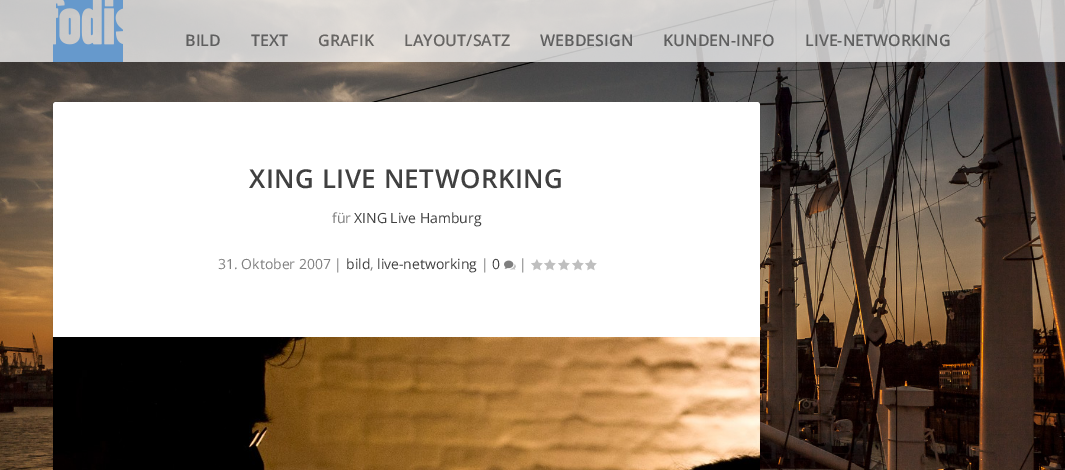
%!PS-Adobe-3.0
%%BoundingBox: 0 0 1065 470
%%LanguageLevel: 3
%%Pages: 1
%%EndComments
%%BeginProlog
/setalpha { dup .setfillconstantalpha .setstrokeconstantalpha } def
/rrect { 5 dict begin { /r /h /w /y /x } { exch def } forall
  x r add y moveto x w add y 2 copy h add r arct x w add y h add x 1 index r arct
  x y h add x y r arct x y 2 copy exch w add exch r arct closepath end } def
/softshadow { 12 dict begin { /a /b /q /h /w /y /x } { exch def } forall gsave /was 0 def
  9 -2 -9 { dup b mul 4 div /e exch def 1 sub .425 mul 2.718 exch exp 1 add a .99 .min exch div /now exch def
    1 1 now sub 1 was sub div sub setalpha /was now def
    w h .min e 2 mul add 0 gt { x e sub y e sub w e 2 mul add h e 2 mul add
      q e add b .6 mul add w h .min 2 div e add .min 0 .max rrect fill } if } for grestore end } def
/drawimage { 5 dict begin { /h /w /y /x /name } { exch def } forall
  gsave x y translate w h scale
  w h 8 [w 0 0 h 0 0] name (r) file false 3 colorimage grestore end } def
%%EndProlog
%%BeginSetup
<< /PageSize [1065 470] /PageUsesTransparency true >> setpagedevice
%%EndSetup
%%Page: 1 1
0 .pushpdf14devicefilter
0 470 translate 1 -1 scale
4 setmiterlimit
1 setgray
0 0 1065 470 rectfill
(images/1.raw) 0 0 1065 470 drawimage
0.74 setalpha
0 0 1065 62 rectfill
1 setalpha
(images/2.raw) 53 0 70 62 drawimage
0 setgray
53 103 707 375 3 1.5 0.1 softshadow
1 setgray
53 102 707 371 3 rrect fill
(images/3.raw) 504 260 12 10 drawimage
(images/4.raw) 531 259 12 12 drawimage
(images/4.raw) 544 259 12 12 drawimage
(images/4.raw) 558 259 12 12 drawimage
(images/4.raw) 572 259 12 12 drawimage
(images/4.raw) 585 259 12 12 drawimage
(images/5.raw) 53 337 707 133 drawimage
/OpenSans-SemiBold [16 0 0 -16 0 0] selectfont
0.373 setgray
185 46 moveto (BILD) show
251 46 moveto (TEXT) show
0.404 0.396 0.388 setrgbcolor
318 46 moveto (GRAFIK) show
404 46 moveto (LAYOUT/SATZ) show
0.373 setgray
540 46 moveto (WEBDESIGN) show
663 46 moveto (KUNDEN-INFO) show
805 46 moveto (LIVE-NETWORKING) show
/OpenSans-SemiBold [26 0 0 -26 0 0] selectfont
0.251 setgray
249 188 moveto 0.5 0 (XING LIVE NETWORKING) ashow
/OpenSans-Regular [14 0 0 -14 0 0] selectfont
0.502 setgray
332 223 moveto (für) show
0.251 setgray
354 223 moveto (XING Live Hamburg) show
0.502 setgray
218 269 moveto (31. Oktober 2007 |) show
0.251 setgray
346 269 moveto (bild) show
0.502 setgray
370 269 moveto (,) show
0.251 setgray
377 269 moveto (live-networking) show
0.502 setgray
481 269 moveto (|) show
0.251 setgray
492 269 moveto (0) show
0.502 setgray
519 269 moveto (|) show
.poppdf14devicefilter showpage
%%EOF
